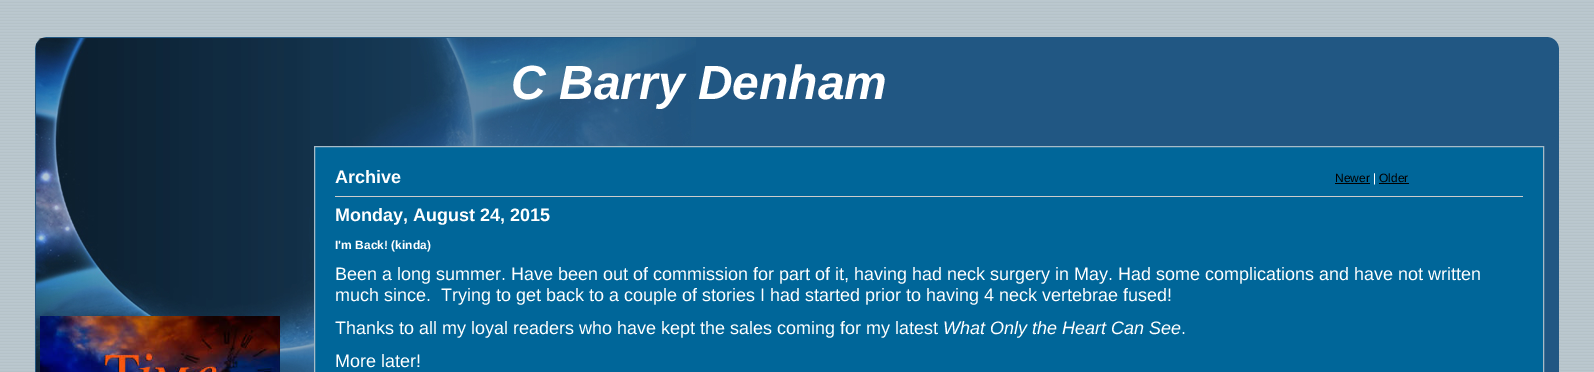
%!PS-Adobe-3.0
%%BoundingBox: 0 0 1594 372
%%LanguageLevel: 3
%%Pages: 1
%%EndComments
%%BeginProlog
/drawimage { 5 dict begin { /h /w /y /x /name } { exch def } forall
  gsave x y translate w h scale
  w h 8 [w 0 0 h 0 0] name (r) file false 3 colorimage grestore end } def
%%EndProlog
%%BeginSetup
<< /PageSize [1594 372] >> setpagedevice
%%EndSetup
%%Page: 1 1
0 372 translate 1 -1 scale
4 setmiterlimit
0.129 0.341 0.514 setrgbcolor
0 0 1594 372 rectfill
(images/1.raw) 0 0 1594 37 drawimage
(images/2.raw) 0 37 696 109 drawimage
(images/3.raw) 1548 37 46 109 drawimage
(images/4.raw) 0 146 35 226 drawimage
(images/5.raw) 35 146 279 226 drawimage
(images/6.raw) 1559 146 35 226 drawimage
(images/7.raw) 40 316 240 56 drawimage
0 0.4 0.6 setrgbcolor
newpath 314.5 146.5 moveto 1543.5 146.5 lineto 1543.5 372.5 lineto 314.5 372.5 lineto closepath gsave fill grestore
0.655 0.733 0.78 setrgbcolor
stroke
0 setgray
1335 183 35 1 rectfill
1379 183 30 1 rectfill
0.8 setgray
335 196 1188 1 rectfill
/LiberationSans-BoldItalic [48 0 0 -48 0 0] selectfont
1 setgray
511 99 moveto (C Barry Denham) show
/LiberationSans-Bold [18 0 0 -18 0 0] selectfont
335 183 moveto (Archive) show
/LiberationSans-Regular [12 0 0 -12 0 0] selectfont
0 setgray
1335 182 moveto (Newer) show
1 setgray
1373 182 moveto (|) show
0 setgray
1379 182 moveto (Older) show
/LiberationSans-Bold [18 0 0 -18 0 0] selectfont
1 setgray
335 221 moveto (Monday, August 24, 2015) show
/LiberationSans-Bold [12 0 0 -12 0 0] selectfont
335 249 moveto (I'm Back! \(kinda\)) show
/LiberationSans-Regular [18 0 0 -18 0 0] selectfont
335 280 moveto (Been a long summer. Have been out of commission for part of it, having had neck surgery in May. Had some complications and have not written) show
335 301 moveto (much since.  Trying to get back to a couple of stories I had started prior to having 4 neck vertebrae fused!) show
335 334 moveto (Thanks to all my loyal readers who have kept the sales coming for my latest) show
/LiberationSans-Italic [18 0 0 -18 0 0] selectfont
943 334 moveto (What Only the Heart Can See) show
/LiberationSans-Regular [18 0 0 -18 0 0] selectfont
1181 334 moveto (.) show
335 367 moveto (More later!) show
showpage
%%EOF
